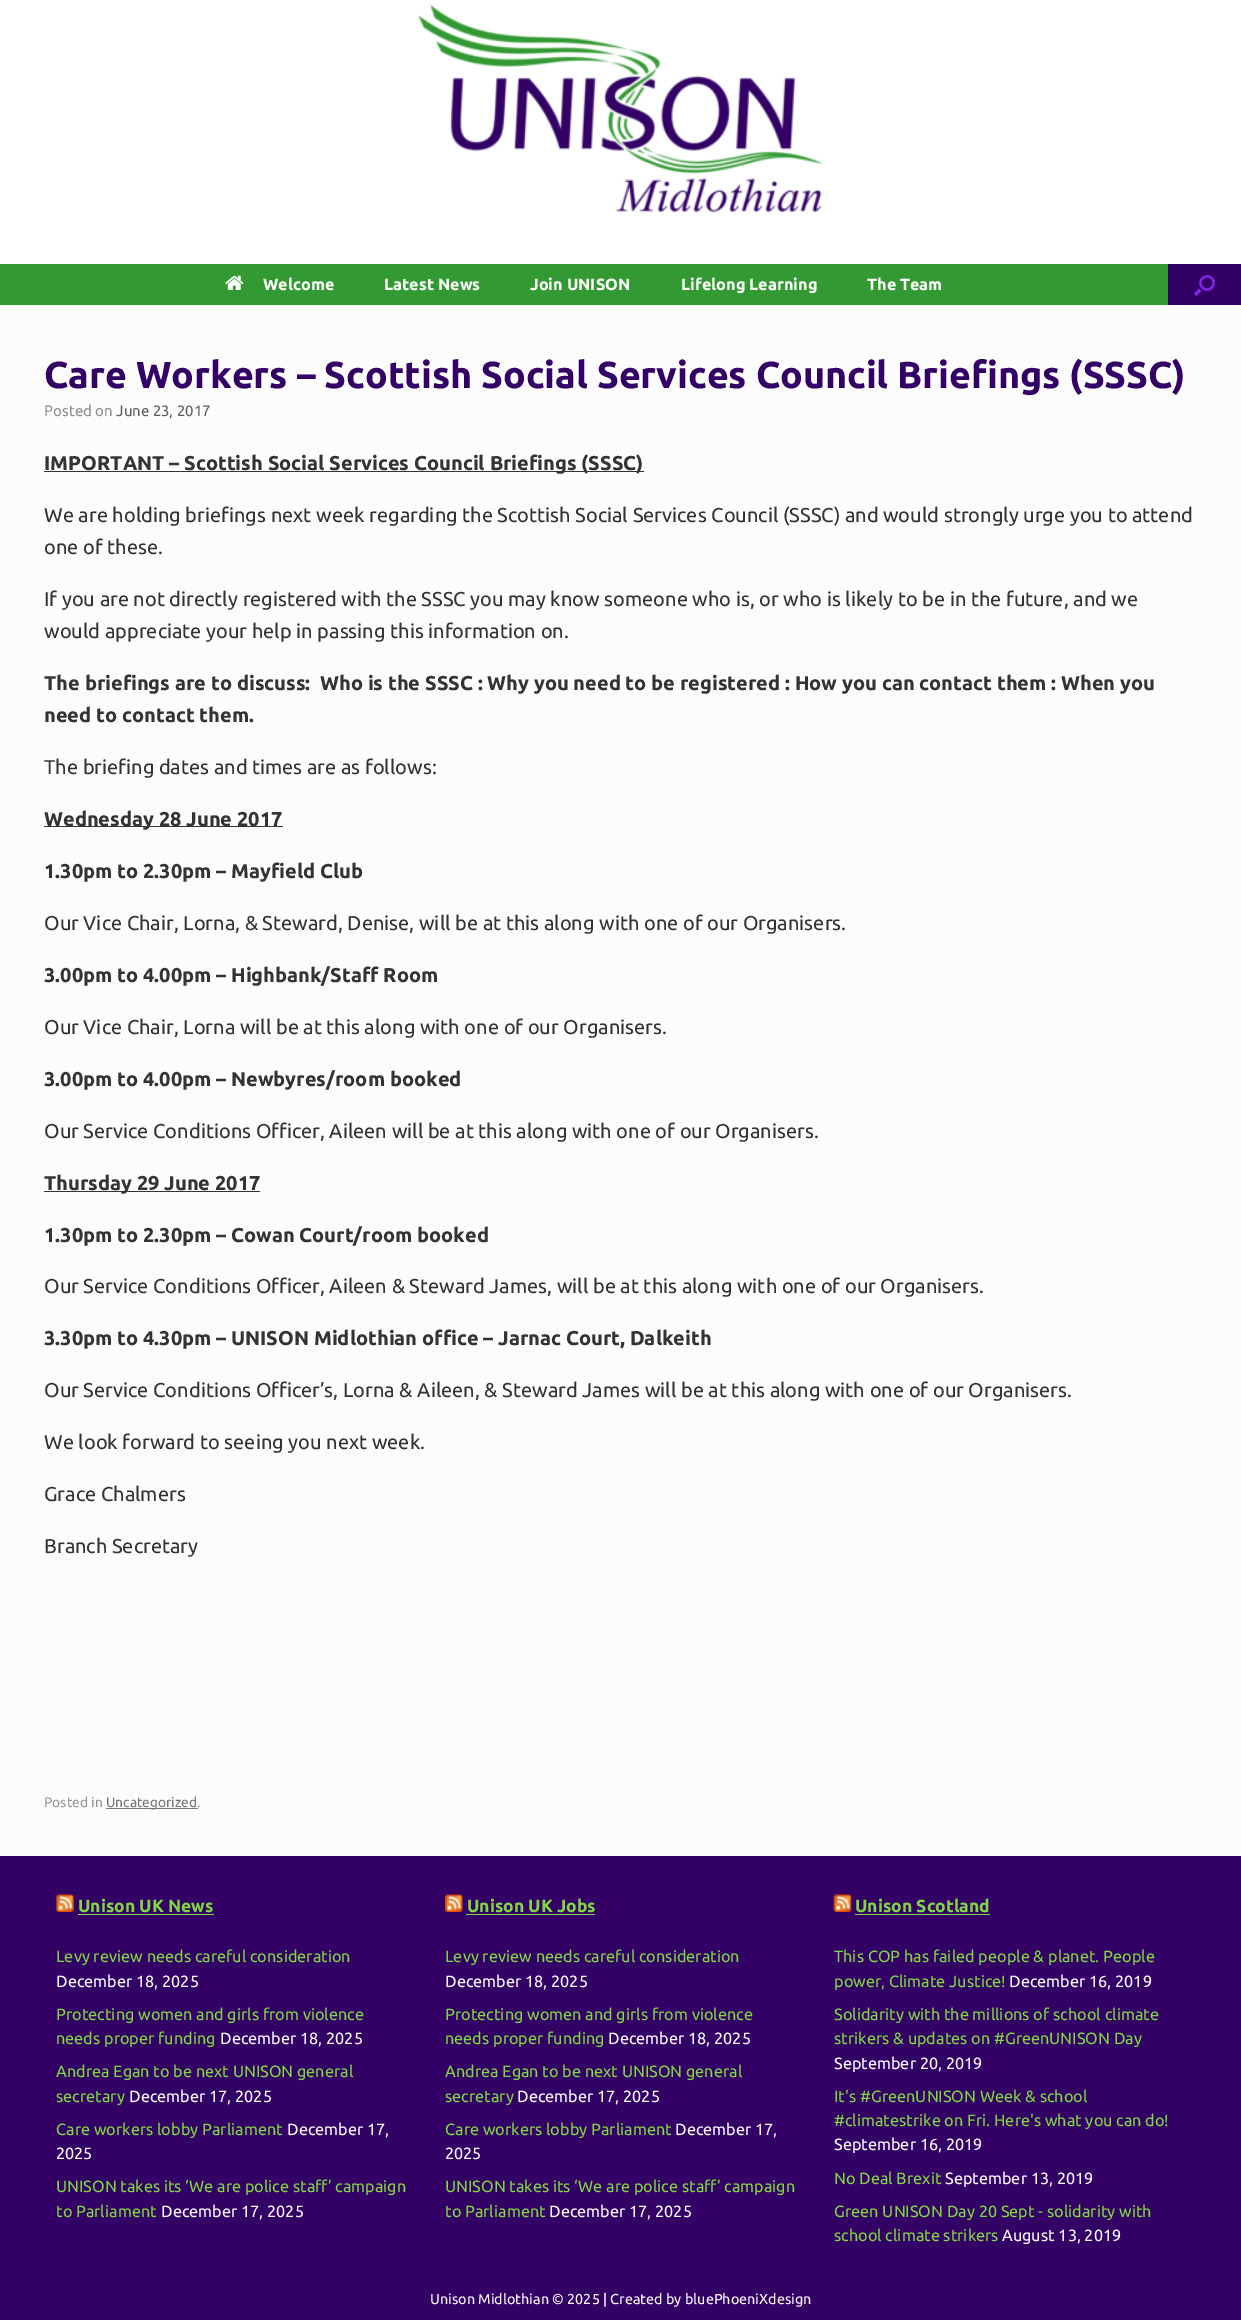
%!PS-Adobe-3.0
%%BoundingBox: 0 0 1241 2320
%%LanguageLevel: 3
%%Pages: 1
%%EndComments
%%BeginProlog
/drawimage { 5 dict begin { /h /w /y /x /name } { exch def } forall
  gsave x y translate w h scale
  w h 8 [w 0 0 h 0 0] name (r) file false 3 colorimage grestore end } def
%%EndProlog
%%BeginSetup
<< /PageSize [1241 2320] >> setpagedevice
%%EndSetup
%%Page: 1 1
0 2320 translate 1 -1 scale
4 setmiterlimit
0.2 0 0.4 setrgbcolor
0 0 1241 2320 rectfill
1 setgray
0 0 1241 264 rectfill
(images/1.raw) 417 4 406 209 drawimage
0.2 0.6 0.2 setrgbcolor
0 264 1168 41 rectfill
(images/2.raw) 225 275 19 15 drawimage
(images/3.raw) 1194 275 21 22 drawimage
0.988 setgray
0 305 1241 1551 rectfill
0.2 setgray
44 471 600 1 rectfill
44 826 239 1 rectfill
44 1191 216 1 rectfill
0.467 setgray
106 1808 92 1 rectfill
(images/4.raw) 56 1894 18 18 drawimage
0.506 0.843 0.259 setrgbcolor
78 1914 136 1 rectfill
(images/5.raw) 445 1894 18 18 drawimage
466 1914 129 1 rectfill
(images/6.raw) 833 1894 19 18 drawimage
855 1914 135 1 rectfill
/Ubuntu-Bold [16.25 0 0 -16.25 0 0] selectfont
1 setgray
263 290 moveto (Welcome) show
384 290 moveto (Latest News) show
530 290 moveto (Join UNISON) show
681 290 moveto (Lifelong Learning) show
867 290 moveto (The Team) show
/Ubuntu-Bold [37.5 0 0 -37.5 0 0] selectfont
0.2 0 0.4 setrgbcolor
44 388 moveto (Care Workers – Scottish Social Services Council Briefings \(SSSC\)) show
/NotoSans-Regular [15 0 0 -15 0 0] selectfont
0.561 setgray
44 416 moveto (P) show
/Ubuntu-Regular [15 0 0 -15 0 0] selectfont
53 416 moveto (osted on) show
0.369 setgray
116 416 moveto (June 23, 2017) show
/Ubuntu-Bold [20 0 0 -20 0 0] selectfont
0.2 setgray
44 470 moveto (IMPORTANT – Scottish Social Services Council Briefings \(SSSC\)) show
/Ubuntu-Regular [20 0 0 -20 0 0] selectfont
44 522 moveto (We are holding briefings next week regarding the Scottish Social Services Council \(SSSC\) and would strongly urge you to attend) show
44 554 moveto (one of these.) show
44 606 moveto (If you are not directly registered with the SSSC you may know someone who is, or who is likely to be in the future, and we) show
44 638 moveto (would appreciate your help in passing this information on.) show
/Ubuntu-Bold [20 0 0 -20 0 0] selectfont
44 690 moveto (The briefings are to discuss:  Who is the SSSC : Why you need to be registered : How you can contact them : When you) show
44 722 moveto (need to contact them.) show
/Ubuntu-Regular [20 0 0 -20 0 0] selectfont
44 774 moveto (The briefing dates and times are as follows:) show
/Ubuntu-Bold [20 0 0 -20 0 0] selectfont
44 826 moveto (Wednesday 28 June 2017) show
44 878 moveto (1.30pm to 2.30pm – Mayfield Club) show
/Ubuntu-Regular [20 0 0 -20 0 0] selectfont
44 930 moveto (Our Vice Chair, Lorna, & Steward, Denise, will be at this along with one of our Organisers.) show
/Ubuntu-Bold [20 0 0 -20 0 0] selectfont
44 982 moveto (3.00pm to 4.00pm – Highbank/Staff Room) show
/Ubuntu-Regular [20 0 0 -20 0 0] selectfont
44 1034 moveto (Our Vice Chair, Lorna will be at this along with one of our Organisers.) show
/Ubuntu-Bold [20 0 0 -20 0 0] selectfont
44 1086 moveto (3.00pm to 4.00pm – Newbyres/room booked) show
/Ubuntu-Regular [20 0 0 -20 0 0] selectfont
44 1138 moveto (Our Service Conditions Officer, Aileen will be at this along with one of our Organisers.) show
/Ubuntu-Bold [20 0 0 -20 0 0] selectfont
44 1190 moveto (Thursday 29 June 2017) show
44 1242 moveto (1.30pm to 2.30pm – Cowan Court/room booked) show
/Ubuntu-Regular [20 0 0 -20 0 0] selectfont
44 1293 moveto (Our Service Conditions Officer, Aileen & Steward James, will be at this along with one of our Organisers.) show
/Ubuntu-Bold [20 0 0 -20 0 0] selectfont
44 1345 moveto (3.30pm to 4.30pm – UNISON Midlothian office – Jarnac Court, Dalkeith) show
/Ubuntu-Regular [20 0 0 -20 0 0] selectfont
44 1397 moveto (Our Service Conditions Officer’s, Lorna & Aileen, & Steward James will be at this along with one of our Organisers.) show
44 1449 moveto (We look forward to seeing you next week.) show
44 1501 moveto (Grace Chalmers) show
44 1553 moveto (Branch Secretary) show
/Ubuntu-Regular [13.75 0 0 -13.75 0 0] selectfont
0.6 setgray
44 1807 moveto (Posted in) show
0.467 setgray
106 1807 moveto (Uncategorized) show
0.6 setgray
197 1807 moveto (.) show
/Ubuntu-Bold [17.5 0 0 -17.5 0 0] selectfont
0.506 0.843 0.259 setrgbcolor
78 1912 moveto (Unison UK News) show
/Ubuntu-Regular [16.25 0 0 -16.25 0 0] selectfont
56 1962 moveto (Levy review needs careful consideration) show
1 setgray
56 1987 moveto (December 18, 2025) show
0.506 0.843 0.259 setrgbcolor
56 2020 moveto (Protecting women and girls from violence) show
56 2044 moveto (needs proper funding) show
1 setgray
220 2044 moveto (December 18, 2025) show
0.506 0.843 0.259 setrgbcolor
56 2077 moveto (Andrea Egan to be next UNISON general) show
56 2102 moveto (secretary) show
1 setgray
129 2102 moveto (December 17, 2025) show
0.506 0.843 0.259 setrgbcolor
56 2135 moveto (Care workers lobby Parliament) show
1 setgray
287 2135 moveto (December 17,) show
56 2159 moveto (2025) show
0.506 0.843 0.259 setrgbcolor
56 2192 moveto (UNISON takes its ‘We are police staff’ campaign) show
56 2217 moveto (to Parliament) show
1 setgray
161 2217 moveto (December 17, 2025) show
/Ubuntu-Bold [17.5 0 0 -17.5 0 0] selectfont
0.506 0.843 0.259 setrgbcolor
467 1912 moveto (Unison UK Jobs) show
/Ubuntu-Regular [16.25 0 0 -16.25 0 0] selectfont
445 1962 moveto (Levy review needs careful consideration) show
1 setgray
445 1987 moveto (December 18, 2025) show
0.506 0.843 0.259 setrgbcolor
445 2020 moveto (Protecting women and girls from violence) show
445 2044 moveto (needs proper funding) show
1 setgray
608 2044 moveto (December 18, 2025) show
0.506 0.843 0.259 setrgbcolor
445 2077 moveto (Andrea Egan to be next UNISON general) show
445 2102 moveto (secretary) show
1 setgray
517 2102 moveto (December 17, 2025) show
0.506 0.843 0.259 setrgbcolor
445 2135 moveto (Care workers lobby Parliament) show
1 setgray
675 2135 moveto (December 17,) show
445 2159 moveto (2025) show
0.506 0.843 0.259 setrgbcolor
445 2192 moveto (UNISON takes its ‘We are police staff’ campaign) show
445 2217 moveto (to Parliament) show
1 setgray
549 2217 moveto (December 17, 2025) show
/Ubuntu-Bold [17.5 0 0 -17.5 0 0] selectfont
0.506 0.843 0.259 setrgbcolor
855 1912 moveto (Unison Scotland) show
/Ubuntu-Regular [16.25 0 0 -16.25 0 0] selectfont
834 1962 moveto (This COP has failed people & planet. People) show
834 1987 moveto (power, Climate Justice!) show
1 setgray
1009 1987 moveto (December 16, 2019) show
0.506 0.843 0.259 setrgbcolor
834 2020 moveto (Solidarity with the millions of school climate) show
834 2044 moveto (strikers & updates on #GreenUNISON Day) show
1 setgray
834 2069 moveto (September 20, 2019) show
0.506 0.843 0.259 setrgbcolor
834 2102 moveto (It's #GreenUNISON Week & school) show
834 2126 moveto (#climatestrike on Fri. Here's what you can do!) show
1 setgray
834 2150 moveto (September 16, 2019) show
0.506 0.843 0.259 setrgbcolor
834 2184 moveto (No Deal Brexit) show
1 setgray
945 2184 moveto (September 13, 2019) show
0.506 0.843 0.259 setrgbcolor
834 2217 moveto (Green UNISON Day 20 Sept - solidarity with) show
834 2241 moveto (school climate strikers) show
1 setgray
1002 2241 moveto (August 13, 2019) show
/Ubuntu-Regular [14.4 0 0 -14.4 0 0] selectfont
430 2304 moveto (Unison Midlothian © 2025 | Created by bluePhoeniXdesign) show
showpage
%%EOF
